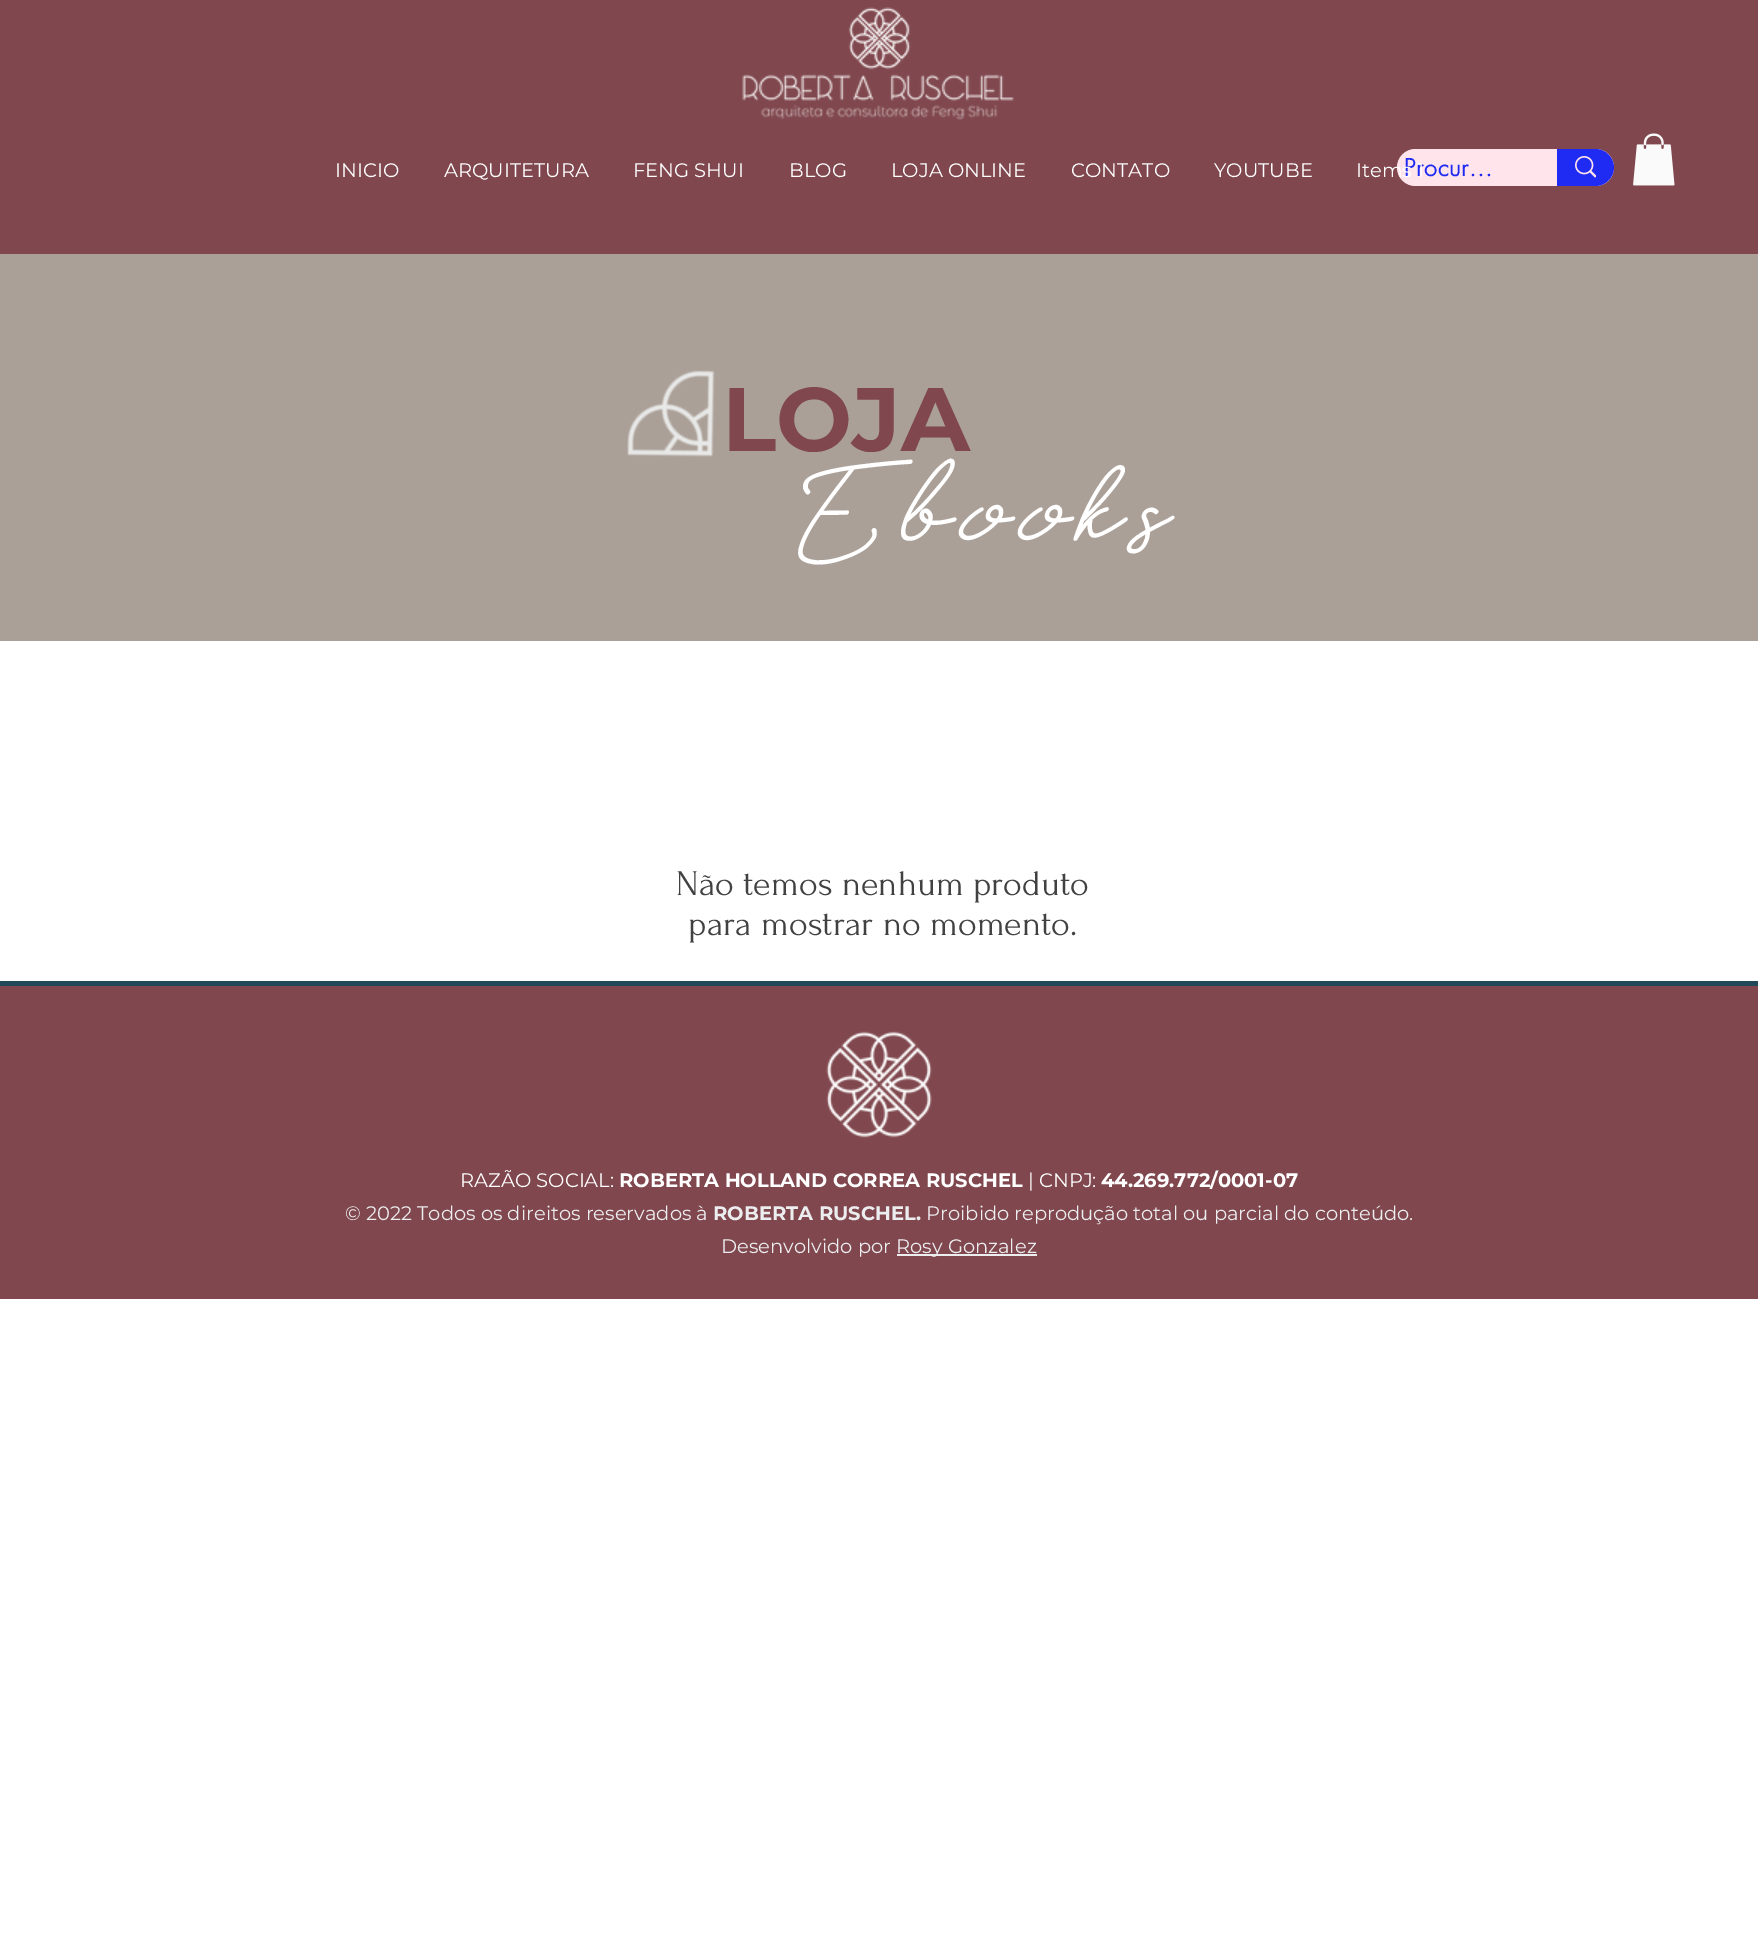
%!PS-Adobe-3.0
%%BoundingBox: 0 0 1758 1935
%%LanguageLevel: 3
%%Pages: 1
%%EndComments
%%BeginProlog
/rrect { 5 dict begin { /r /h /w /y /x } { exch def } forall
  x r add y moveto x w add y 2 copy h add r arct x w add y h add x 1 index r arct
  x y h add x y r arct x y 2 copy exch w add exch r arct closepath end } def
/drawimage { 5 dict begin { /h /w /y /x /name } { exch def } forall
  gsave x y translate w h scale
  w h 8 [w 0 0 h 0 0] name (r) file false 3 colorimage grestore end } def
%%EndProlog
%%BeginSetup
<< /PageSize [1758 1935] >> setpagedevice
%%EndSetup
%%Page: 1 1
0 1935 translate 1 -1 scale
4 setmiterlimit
1 setgray
0 0 1758 1935 rectfill
0.502 0.282 0.306 setrgbcolor
0 0 1758 254 rectfill
(images/1.raw) 742 7 273 114 drawimage
1 0.894 0.925 setrgbcolor
1397 149 217 37 18.5 rrect fill
0.122 0.169 0.953 setrgbcolor
newpath 1557 149 moveto 1595.5 149 lineto 1605.5 149 1614 157.5 1614 167.5 curveto 1614 177.5 1605.5 186 1595.5 186 curveto 1557 186 lineto closepath fill
(images/2.raw) 1575 156 21 22 drawimage
(images/3.raw) 1633 133 42 53 drawimage
0.671 0.627 0.596 setrgbcolor
0 254 1758 387 rectfill
(images/4.raw) 627 370 88 87 drawimage
0.133 0.286 0.353 setrgbcolor
0 981 1758 5 rectfill
0.502 0.282 0.306 setrgbcolor
0 986 1758 313 rectfill
(images/5.raw) 826 1031 106 107 drawimage
0.925 0.929 0.937 setrgbcolor
897 1254 140 2 rectfill
/Montserrat-Regular [19.5 0 0 -19.5 0 0] selectfont
1 setgray
335 177 moveto (INICIO) show
444 177 moveto (ARQUITETURA) show
633 177 moveto (FENG SHUI) show
789 177 moveto (BLOG) show
891 177 moveto (LOJA ONLINE) show
1071 177 moveto (CONTATO) show
1214 177 moveto (YOUTUBE) show
/futura-Regular [24 0 0 -24 0 0] selectfont
0.122 0.169 0.953 setrgbcolor
1404 176 moveto (Procur…) show
/Montserrat-Regular [19.5 0 0 -19.5 0 0] selectfont
1 setgray
1356 177 moveto (Items 1) show
/Montserrat-Bold [90 0 0 -90 0 0] selectfont
0.502 0.282 0.306 setrgbcolor
722 451 moveto (LOJA) show
/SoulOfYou-Italic [147 0 0 -147 0 0] selectfont
1 setgray
784 559 moveto (Ebooks) show
/Forum-Regular [36 0 0 -36 0 0] selectfont
0.255 setgray
676 895 moveto (Não temos nenhum produto) show
688 935 moveto (para mostrar no momento.) show
/Montserrat-Regular [19.5 0 0 -19.5 0 0] selectfont
1 setgray
460 1187 moveto (RAZÃO SOCIAL:) show
/Montserrat-Bold [19.5 0 0 -19.5 0 0] selectfont
619 1187 moveto (ROBERTA HOLLAND CORREA RUSCHEL) show
/Montserrat-Regular [19.5 0 0 -19.5 0 0] selectfont
1028 1187 moveto (| CNPJ:) show
/Montserrat-Bold [19.5 0 0 -19.5 0 0] selectfont
1101 1187 moveto (44.269.772/0001-07) show
/Montserrat-Regular [19.5 0 0 -19.5 0 0] selectfont
0.925 0.929 0.937 setrgbcolor
345 1220 moveto (© 2022 Todos os direitos reservados à) show
/Montserrat-Bold [19.5 0 0 -19.5 0 0] selectfont
713 1220 moveto (ROBERTA RUSCHEL.) show
/Montserrat-Regular [19.5 0 0 -19.5 0 0] selectfont
926 1220 moveto (Proibido reprodução total ou parcial do conteúdo.) show
721 1253 moveto (Desenvolvido por) show
896 1253 moveto (Rosy Gonzalez) show
showpage
%%EOF
